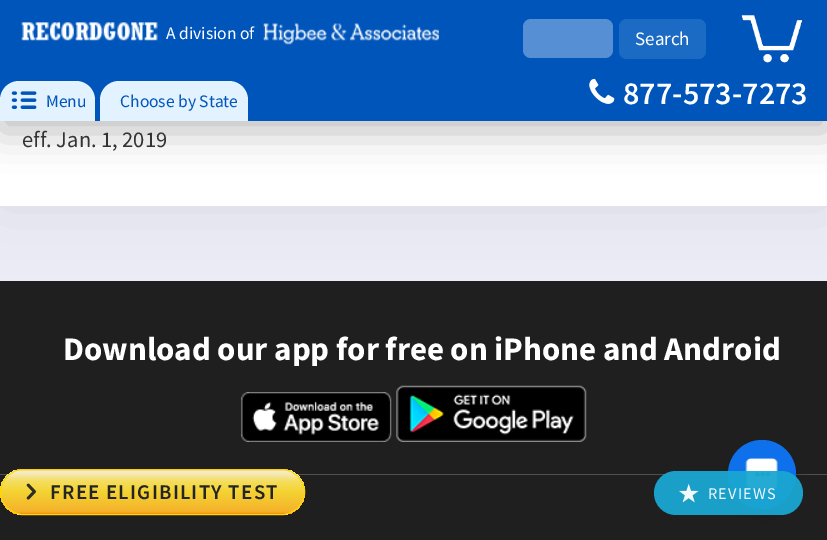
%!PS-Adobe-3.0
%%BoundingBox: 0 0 827 540
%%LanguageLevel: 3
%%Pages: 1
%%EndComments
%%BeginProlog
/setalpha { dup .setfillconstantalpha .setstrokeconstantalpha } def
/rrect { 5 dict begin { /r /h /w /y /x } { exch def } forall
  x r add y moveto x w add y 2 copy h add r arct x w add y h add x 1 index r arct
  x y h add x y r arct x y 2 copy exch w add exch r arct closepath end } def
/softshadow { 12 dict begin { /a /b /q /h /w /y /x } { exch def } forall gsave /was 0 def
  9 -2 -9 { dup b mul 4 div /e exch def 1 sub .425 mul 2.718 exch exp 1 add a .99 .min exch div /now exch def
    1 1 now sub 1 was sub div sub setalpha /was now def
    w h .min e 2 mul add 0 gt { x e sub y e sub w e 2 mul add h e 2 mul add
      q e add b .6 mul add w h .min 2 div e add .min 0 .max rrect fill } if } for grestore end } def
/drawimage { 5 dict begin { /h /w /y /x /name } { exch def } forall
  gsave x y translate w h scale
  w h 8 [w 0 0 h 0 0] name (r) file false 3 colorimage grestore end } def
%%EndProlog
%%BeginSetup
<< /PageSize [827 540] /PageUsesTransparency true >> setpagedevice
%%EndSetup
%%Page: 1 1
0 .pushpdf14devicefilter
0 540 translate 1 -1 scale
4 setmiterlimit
0.922 0.925 0.965 setrgbcolor
0 0 827 540 rectfill
0.122 setgray
0 281 827 259 rectfill
0 setgray
0 -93 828 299 0 31 0.07 softshadow
1 setgray
0 121 827 85 rectfill
0 setgray
0 10 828 121 0 19 0.25 softshadow
0 0.333 0.733 setrgbcolor
0 0 827 121 rectfill
(images/1.raw) 21 22 137 19 drawimage
(images/2.raw) 263 23 176 22 drawimage
0.337 0.561 0.827 setrgbcolor
523 19 90 39 8 rrect fill
0.106 0.42 0.769 setrgbcolor
619 19 87 40 8 rrect fill
(images/3.raw) 741 15 62 48 drawimage
(images/4.raw) 589 78 26 26 drawimage
0.886 0.949 1 setrgbcolor
newpath 19 81 moveto 76 81 lineto 86.5 81 95 89.5 95 100 curveto 95 121 lineto 0 121 lineto 0 100 lineto 0 89.5 8.5 81 19 81 curveto closepath fill
(images/5.raw) 11 91 26 18 drawimage
newpath 119 81 moveto 229 81 lineto 239.5 81 248 89.5 248 100 curveto 248 121 lineto 100 121 lineto 100 100 lineto 100 89.5 108.5 81 119 81 curveto closepath fill
0.314 setgray
0 474 827 1 rectfill
(images/6.raw) 241 392 151 50 drawimage
(images/7.raw) 396 385 191 57 drawimage
gsave
0 469 305 46 23 rrect clip newpath
gsave newpath 16 469 moveto 289 469 lineto 289 470 lineto 16 470 lineto closepath clip newpath
<< /ShadingType 2 /ColorSpace /DeviceRGB /Coords [153 426 153 470] /Extend [true true] /Function << /FunctionType 3 /Domain [0 1] /Functions [<< /FunctionType 2 /Domain [0 1] /C0 [0.957 0.882 0.596] /C1 [0.957 0.882 0.596] /N 1 >> << /FunctionType 2 /Domain [0 1] /C0 [0.957 0.882 0.596] /C1 [0.957 0.922 0.824] /N 1 >> << /FunctionType 2 /Domain [0 1] /C0 [0.957 0.922 0.824] /C1 [0.957 0.867 0.376] /N 1 >> << /FunctionType 2 /Domain [0 1] /C0 [0.957 0.867 0.376] /C1 [0.957 0.831 0.204] /N 1 >> << /FunctionType 2 /Domain [0 1] /C0 [0.957 0.831 0.204] /C1 [0.957 0.69 0.165] /N 1 >> << /FunctionType 2 /Domain [0 1] /C0 [0.957 0.69 0.165] /C1 [0.957 0.592 0.008] /N 1 >>] /Bounds [0.01 0.03 0.25 0.47 0.95] /Encode [0 1 0 1 0 1 0 1 0 1 0 1] >> >> shfill grestore
0.95 setalpha
gsave newpath 0 470 moveto 305 470 lineto 305 514 lineto 0 514 lineto closepath clip newpath
<< /ShadingType 2 /ColorSpace /DeviceRGB /Coords [153 470 153 514] /Extend [true true] /Function << /FunctionType 3 /Domain [0 1] /Functions [<< /FunctionType 2 /Domain [0 1] /C0 [1 0.922 0.62] /C1 [1 0.922 0.62] /N 1 >> << /FunctionType 2 /Domain [0 1] /C0 [1 0.922 0.62] /C1 [1 0.965 0.859] /N 1 >> << /FunctionType 2 /Domain [0 1] /C0 [1 0.965 0.859] /C1 [1 0.906 0.388] /N 1 >> << /FunctionType 2 /Domain [0 1] /C0 [1 0.906 0.388] /C1 [1 0.867 0.208] /N 1 >> << /FunctionType 2 /Domain [0 1] /C0 [1 0.867 0.208] /C1 [1 0.722 0.169] /N 1 >> << /FunctionType 2 /Domain [0 1] /C0 [1 0.722 0.169] /C1 [1 0.616 0] /N 1 >>] /Bounds [0.01 0.03 0.25 0.47 0.95] /Encode [0 1 0 1 0 1 0 1 0 1 0 1] >> >> shfill grestore
1 setalpha
gsave newpath 16 514 moveto 289 514 lineto 289 515 lineto 16 515 lineto closepath clip newpath
<< /ShadingType 2 /ColorSpace /DeviceRGB /Coords [153 514 153 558] /Extend [true true] /Function << /FunctionType 3 /Domain [0 1] /Functions [<< /FunctionType 2 /Domain [0 1] /C0 [0.957 0.882 0.596] /C1 [0.957 0.882 0.596] /N 1 >> << /FunctionType 2 /Domain [0 1] /C0 [0.957 0.882 0.596] /C1 [0.957 0.922 0.824] /N 1 >> << /FunctionType 2 /Domain [0 1] /C0 [0.957 0.922 0.824] /C1 [0.957 0.867 0.376] /N 1 >> << /FunctionType 2 /Domain [0 1] /C0 [0.957 0.867 0.376] /C1 [0.957 0.831 0.204] /N 1 >> << /FunctionType 2 /Domain [0 1] /C0 [0.957 0.831 0.204] /C1 [0.957 0.69 0.165] /N 1 >> << /FunctionType 2 /Domain [0 1] /C0 [0.957 0.69 0.165] /C1 [0.957 0.592 0.008] /N 1 >>] /Bounds [0.01 0.03 0.25 0.47 0.95] /Encode [0 1 0 1 0 1 0 1 0 1 0 1] >> >> shfill grestore
grestore
0.95 setalpha
1 0.835 0 setrgbcolor
0.5 469.5 304 45 22.5 rrect stroke
1 setalpha
(images/8.raw) 26 483 10 17 drawimage
0 setgray
728 448 68 68 34 7.5 0.2 softshadow
0.055 0.443 0.922 setrgbcolor
728 440 68 69 34 rrect fill
(images/9.raw) 745 458 33 36 drawimage
0.95 setalpha
0.098 0.651 0.82 setrgbcolor
654 471 149 44 22 rrect fill
1 setalpha
(images/10.raw) 679 484 20 19 drawimage
/SourceSansPro-Regular [17.5 0 0 -17.5 0 0] selectfont
1 setgray
166 39 moveto (A division of) show
/SourceSansPro-Regular [19 0 0 -19 0 0] selectfont
635 45 moveto (Search) show
/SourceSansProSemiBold-SemiBold [32 0 0 -32 0 0] selectfont
623 104 moveto (877-573-7273) show
/SourceSansPro-Regular [17.5 0 0 -17.5 0 0] selectfont
0 0.333 0.733 setrgbcolor
46 107 moveto (Menu) show
120 107 moveto (Choose by State) show
/SourceSansPro-Regular [22.5 0 0 -22.5 0 0] selectfont
0.2 setgray
22 147 moveto (eff. Jan. 1, 2019) show
/SourceSansPro-Bold [33 0 0 -33 0 0] selectfont
1 setgray
63 360 moveto (Download our app for free on iPhone and Android) show
/SourceSansProSemiBold-SemiBold [20.9 0 0 -20.9 0 0] selectfont
0.141 setgray
50 499 moveto 1.25 0 (FREE ELIGIBILITY TEST) ashow
/SourceSansPro-Regular [16.25 0 0 -16.25 0 0] selectfont
0.957 0.98 0.992 setrgbcolor
708 499 moveto 1.25 0 (REVIEWS) ashow
.poppdf14devicefilter showpage
%%EOF
